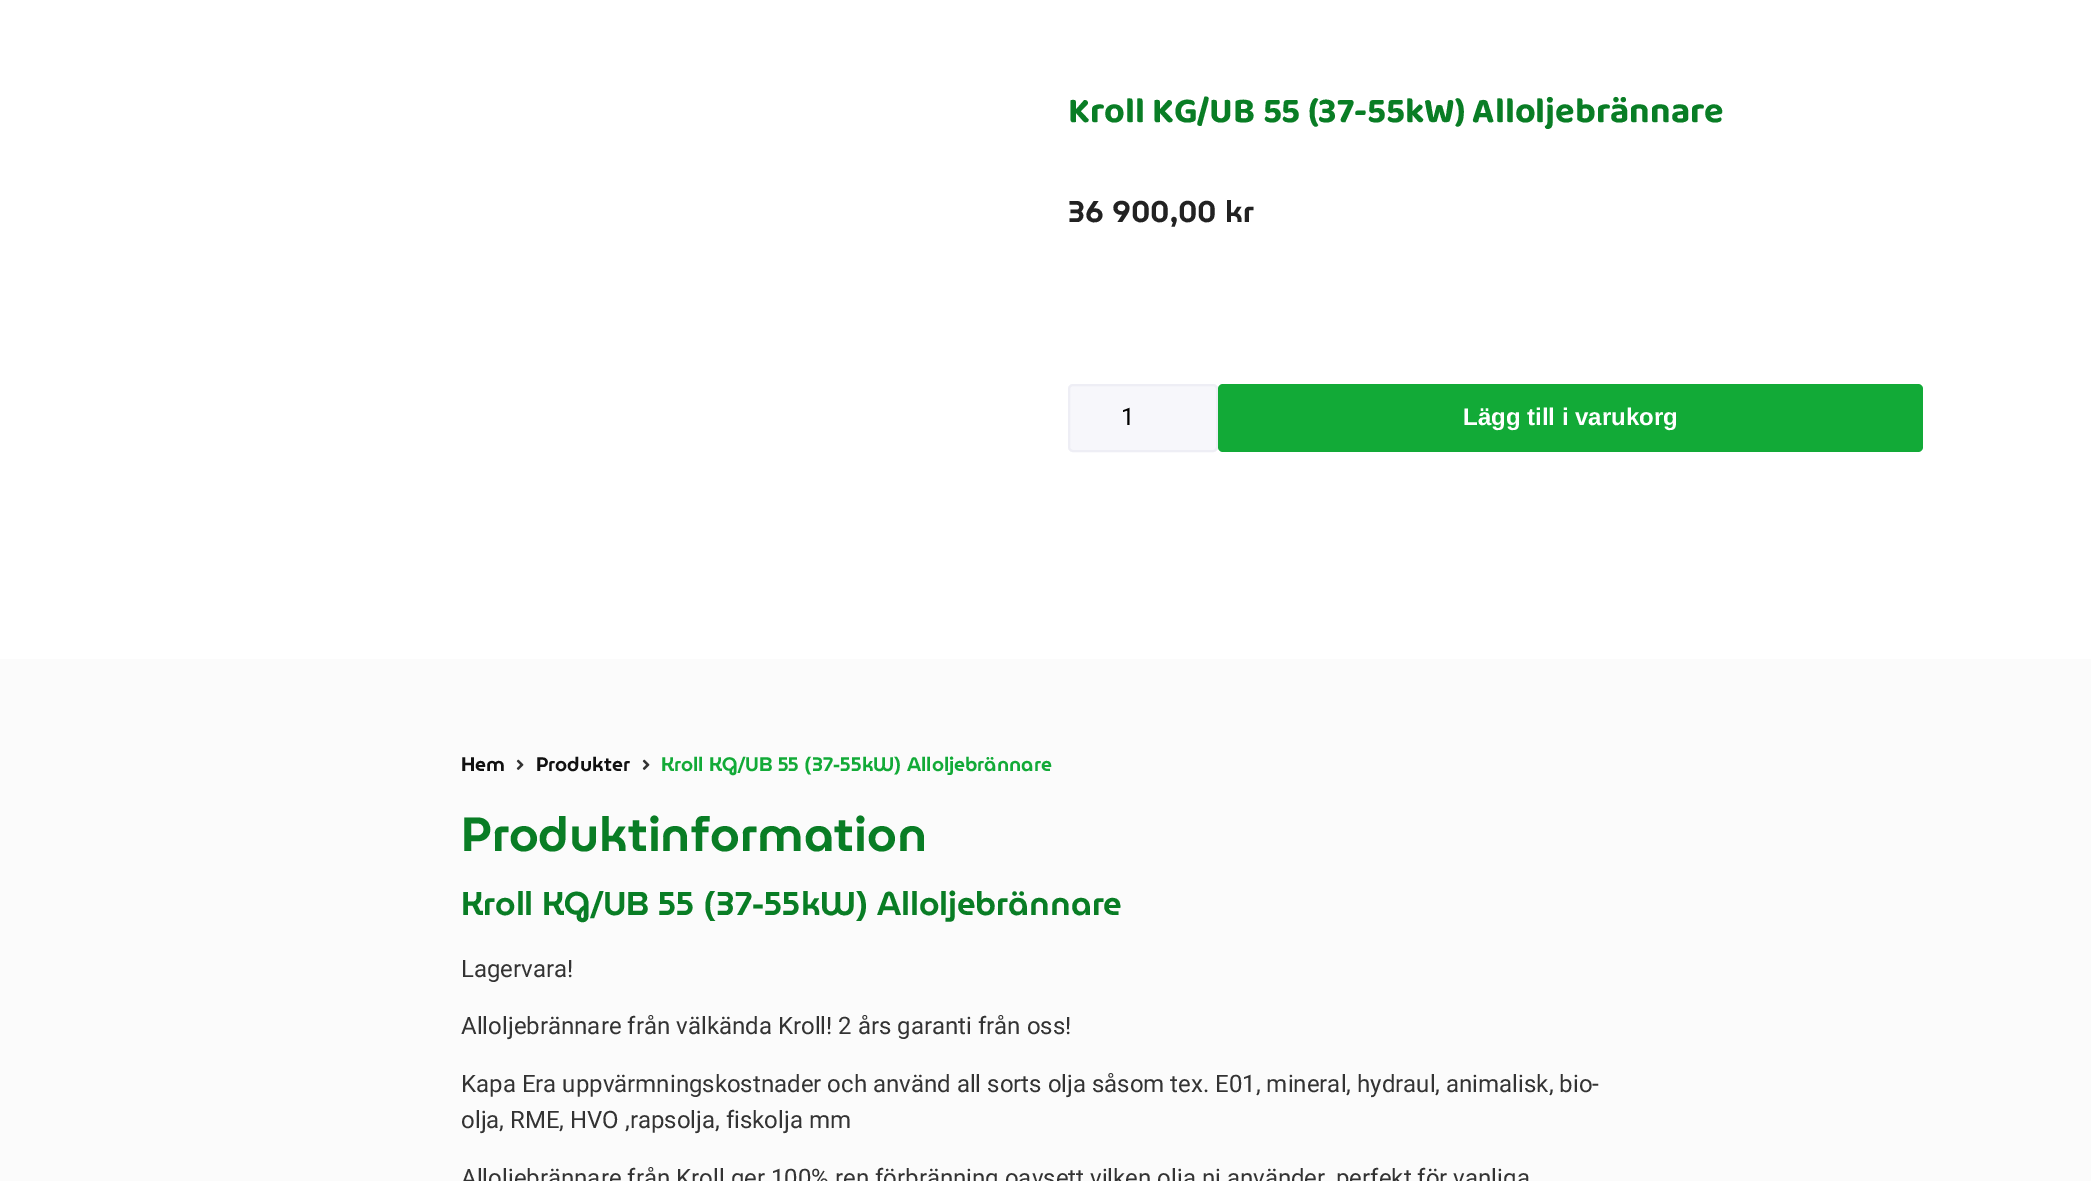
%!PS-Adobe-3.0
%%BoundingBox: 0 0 2091 1181
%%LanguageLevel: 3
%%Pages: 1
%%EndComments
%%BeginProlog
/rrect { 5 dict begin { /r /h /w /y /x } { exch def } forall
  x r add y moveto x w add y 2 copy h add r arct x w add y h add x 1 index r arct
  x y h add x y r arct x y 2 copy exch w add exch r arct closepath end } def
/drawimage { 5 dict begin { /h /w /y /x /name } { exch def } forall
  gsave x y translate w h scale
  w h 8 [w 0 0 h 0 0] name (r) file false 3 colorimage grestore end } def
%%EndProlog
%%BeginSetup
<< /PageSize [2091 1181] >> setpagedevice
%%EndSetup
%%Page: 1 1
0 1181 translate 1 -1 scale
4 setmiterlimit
1 setgray
0 0 2091 1181 rectfill
0.969 0.969 0.984 setrgbcolor
1069 385 148 66 4 rrect gsave fill grestore
0.933 0.933 0.961 setrgbcolor
2 setlinewidth
stroke
0.071 0.667 0.216 setrgbcolor
1218 384 705 68 5 rrect fill
0.984 setgray
0 659 2091 522 rectfill
(images/1.raw) 516 759 8 11 drawimage
(images/1.raw) 642 759 8 11 drawimage
/Baloo2-Bold [36 0 0 -36 0 0] selectfont
0.035 0.49 0.145 setrgbcolor
1068 122 moveto (Kroll KG/UB 55 \(37-55kW\) Alloljebrännare) show
/MuseoModerno-SemiBold [30 0 0 -30 0 0] selectfont
0.133 setgray
1068 222 moveto (36 900,00 kr) show
/Roboto-Regular [24 0 0 -24 0 0] selectfont
0 setgray
1121 425 moveto (1) show
/LiberationSans-Bold [24 0 0 -24 0 0] selectfont
1 setgray
1463 425 moveto (Lägg till i varukorg) show
/MuseoModerno-SemiBold [19.5 0 0 -19.5 0 0] selectfont
0.067 setgray
461 771 moveto (Hem) show
536 771 moveto (Produkter) show
0.071 0.667 0.216 setrgbcolor
661 771 moveto (Kroll KG/UB 55 \(37-55kW\) Alloljebrännare) show
/MuseoModerno-SemiBold [48 0 0 -48 0 0] selectfont
0.035 0.49 0.145 setrgbcolor
461 851 moveto (Produktinformation) show
/MuseoModerno-SemiBold [33 0 0 -33 0 0] selectfont
461 915 moveto (Kroll KG/UB 55 \(37-55kW\) Alloljebrännare) show
/Roboto-Regular [24 0 0 -24 0 0] selectfont
0.2 setgray
461 977 moveto (Lagervara!) show
461 1034 moveto (Alloljebrännare från välkända Kroll! 2 års garanti från oss!) show
461 1092 moveto (Kapa Era uppvärmningskostnader och använd all sorts olja såsom tex. E01, mineral, hydraul, animalisk, bio-) show
461 1128 moveto (olja, RME, HVO ,rapsolja, fiskolja mm) show
461 1186 moveto (Alloljebrännare från Kroll ger 100% ren förbränning oavsett vilken olja ni använder, perfekt för vanliga) show
showpage
%%EOF
